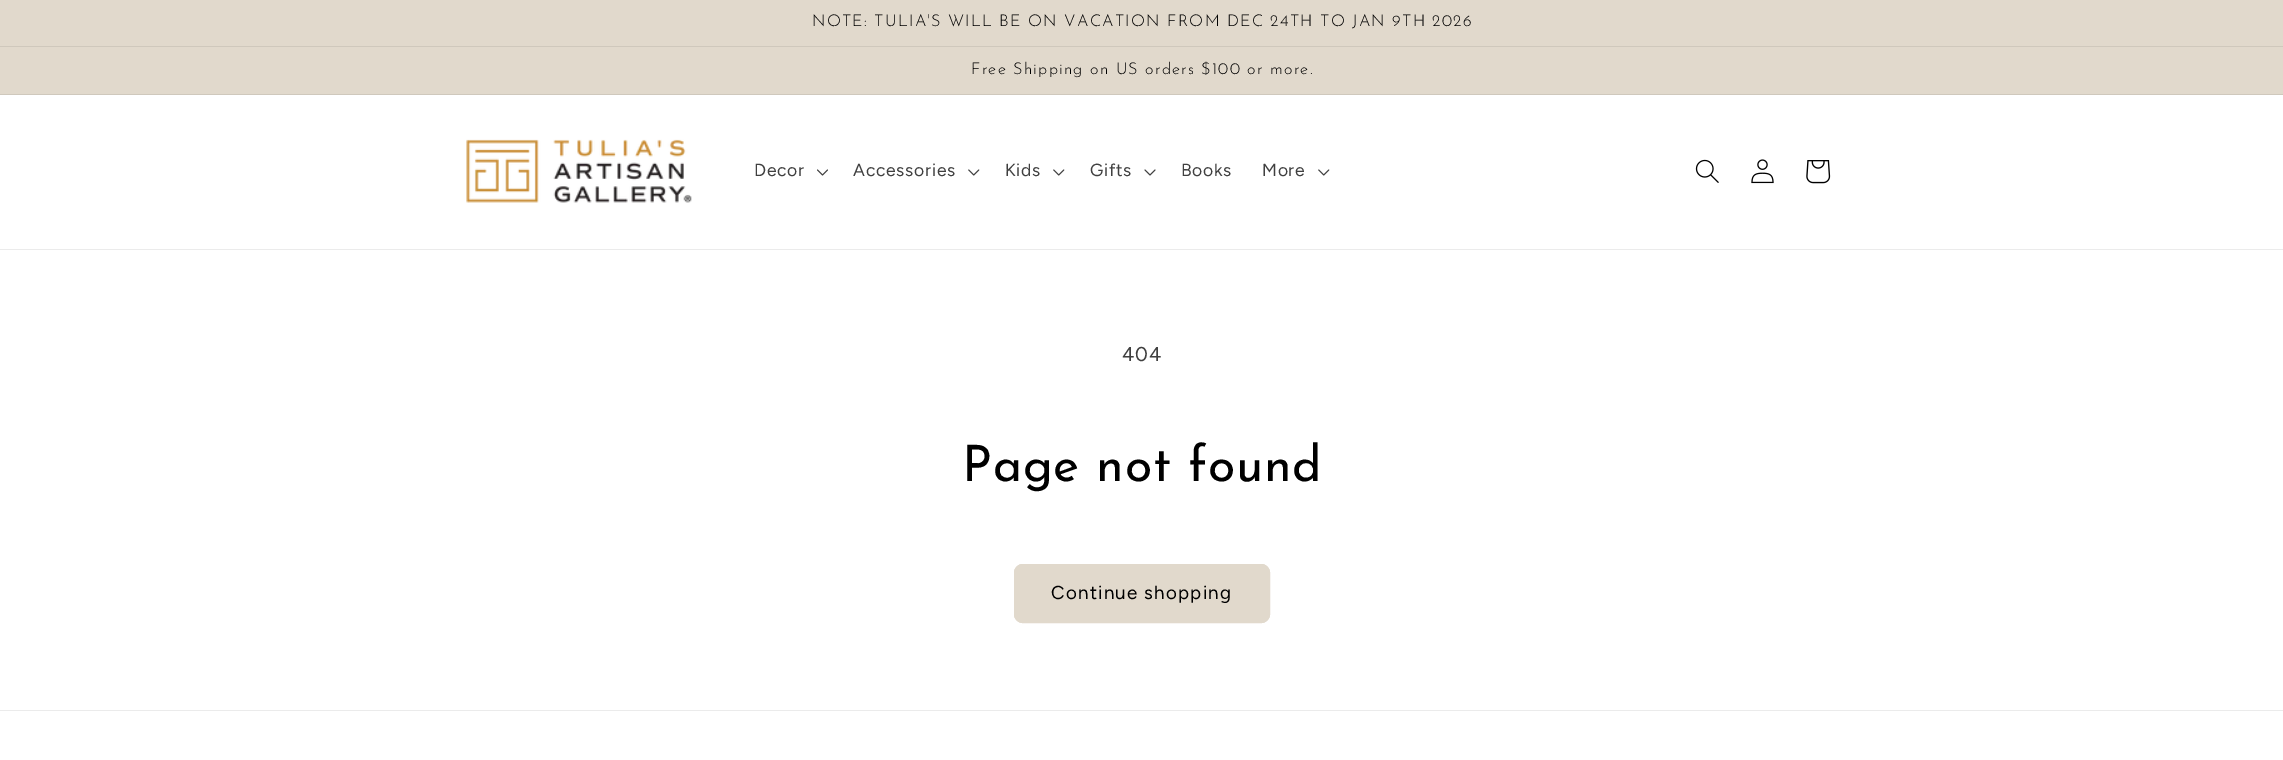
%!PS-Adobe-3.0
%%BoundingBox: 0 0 2283 760
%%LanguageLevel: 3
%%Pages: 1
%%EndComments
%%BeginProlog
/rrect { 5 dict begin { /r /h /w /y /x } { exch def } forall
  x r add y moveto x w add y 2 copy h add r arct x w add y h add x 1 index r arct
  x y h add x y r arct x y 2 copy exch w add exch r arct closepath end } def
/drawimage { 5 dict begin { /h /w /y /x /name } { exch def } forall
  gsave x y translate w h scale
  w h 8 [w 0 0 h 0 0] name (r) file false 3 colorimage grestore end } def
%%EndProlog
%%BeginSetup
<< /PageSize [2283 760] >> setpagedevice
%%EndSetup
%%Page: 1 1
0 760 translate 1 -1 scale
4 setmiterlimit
1 setgray
0 0 2283 760 rectfill
0.882 0.851 0.8 setrgbcolor
0 0 2283 94 rectfill
0.812 0.784 0.737 setrgbcolor
0 46 2283 1 rectfill
0 94 2283 1 rectfill
0.922 setgray
0 249 2283 1 rectfill
(images/1.raw) 466 139 226 64 drawimage
(images/2.raw) 817 169 11 7 drawimage
(images/3.raw) 968 169 12 7 drawimage
(images/3.raw) 1053 169 12 7 drawimage
(images/4.raw) 1144 169 12 7 drawimage
(images/3.raw) 1318 169 12 7 drawimage
(images/5.raw) 1695 159 24 24 drawimage
(images/6.raw) 1751 159 23 25 drawimage
(images/7.raw) 1806 160 25 24 drawimage
0.882 0.851 0.8 setrgbcolor
1014 564 256 59 9 rrect fill
1014.5 564.5 255 58 8.5 rrect stroke
0.922 setgray
0 710 2283 1 rectfill
/JosefinSans-Light [16.25 0 0 -16.25 0 0] selectfont
0 setgray
812 26 moveto 1.25 0 (NOTE: TULIA'S WILL BE ON VACATION FROM DEC 24TH TO JAN 9TH 2026) ashow
971 74 moveto 1.25 0 (Free Shipping on US orders $100 or more.) ashow
/Figtree-Regular [17.5 0 0 -17.5 0 0] selectfont
0.251 setgray
754 176 moveto 0.75 0 (Decor) ashow
853 176 moveto 0.75 0 (Accessories) ashow
1005 176 moveto 0.75 0 (Kids) ashow
1090 176 moveto 0.75 0 (Gifts) ashow
1181 176 moveto 0.75 0 (Books) ashow
1262 176 moveto 0.75 0 (More) ashow
/Figtree-Regular [20 0 0 -20 0 0] selectfont
1122 361 moveto 0.75 0 (404) ashow
/JosefinSans-Regular [50 0 0 -50 0 0] selectfont
0 setgray
962 481 moveto 0.75 0 (Page not found) ashow
/Figtree-Regular [18.75 0 0 -18.75 0 0] selectfont
1051 599 moveto 1.25 0 (Continue shopping) ashow
showpage
%%EOF
